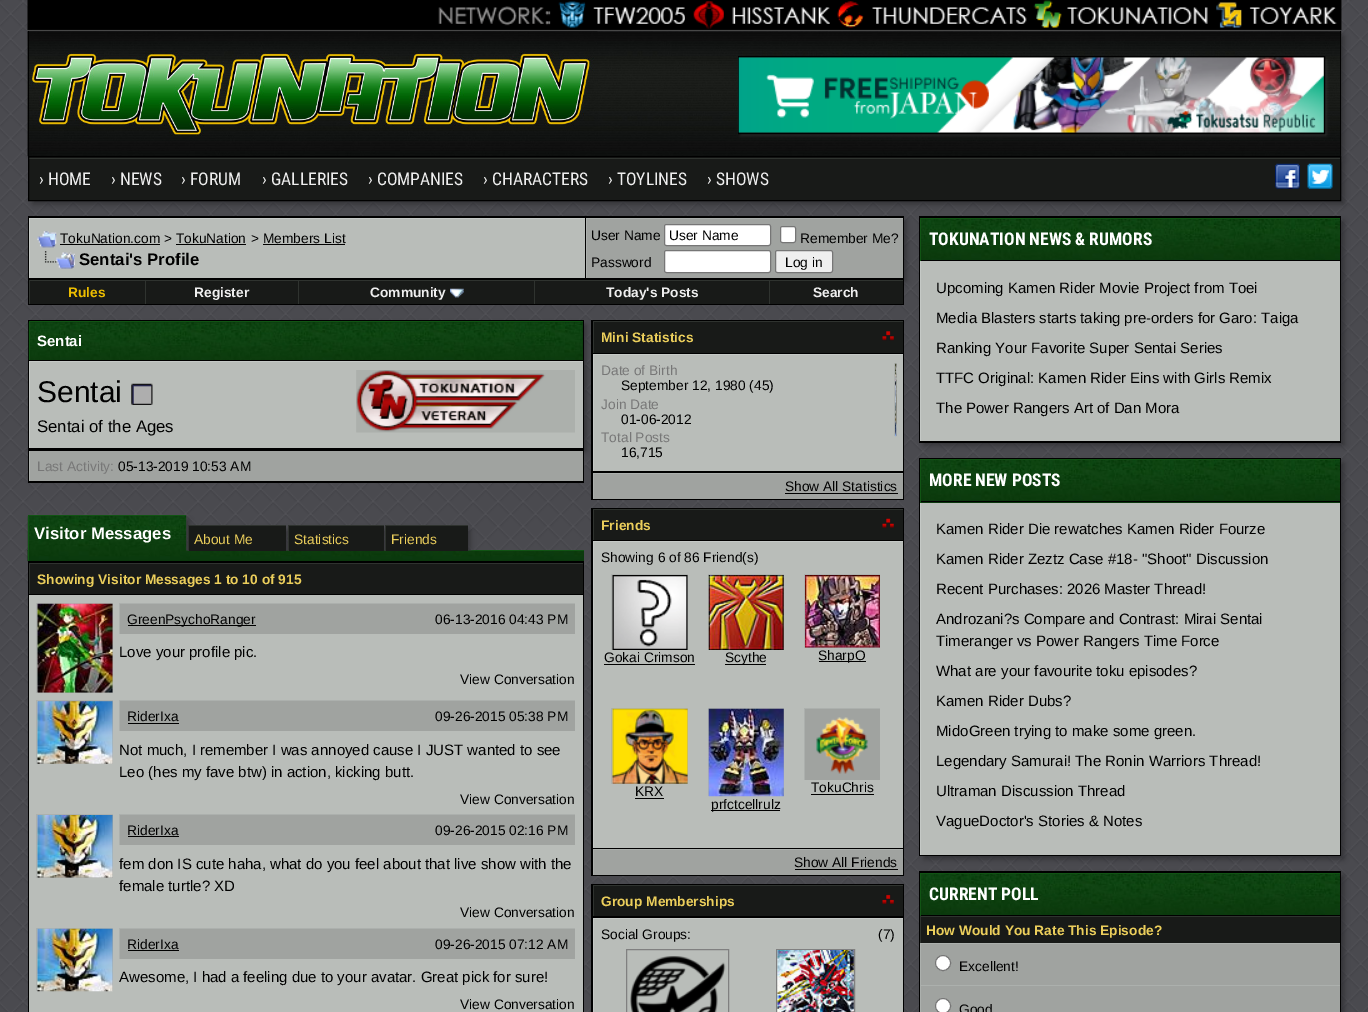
%!PS-Adobe-3.0
%%BoundingBox: 0 0 1368 1012
%%LanguageLevel: 3
%%Pages: 1
%%EndComments
%%BeginProlog
/setalpha { dup .setfillconstantalpha .setstrokeconstantalpha } def
/rrect { 5 dict begin { /r /h /w /y /x } { exch def } forall
  x r add y moveto x w add y 2 copy h add r arct x w add y h add x 1 index r arct
  x y h add x y r arct x y 2 copy exch w add exch r arct closepath end } def
/softshadow { 12 dict begin { /a /b /q /h /w /y /x } { exch def } forall gsave /was 0 def
  9 -2 -9 { dup b mul 4 div /e exch def 1 sub .425 mul 2.718 exch exp 1 add a .99 .min exch div /now exch def
    1 1 now sub 1 was sub div sub setalpha /was now def
    w h .min e 2 mul add 0 gt { x e sub y e sub w e 2 mul add h e 2 mul add
      q e add b .6 mul add w h .min 2 div e add .min 0 .max rrect fill } if } for grestore end } def
/drawimage { 5 dict begin { /h /w /y /x /name } { exch def } forall
  gsave x y translate w h scale
  w h 8 [w 0 0 h 0 0] name (r) file false 3 colorimage grestore end } def
%%EndProlog
%%BeginSetup
<< /PageSize [1368 1012] /PageUsesTransparency true >> setpagedevice
%%EndSetup
%%Page: 1 1
0 .pushpdf14devicefilter
0 1012 translate 1 -1 scale
4 setmiterlimit
1 setgray
0 0 1368 1012 rectfill
(images/1.raw) 0 0 1368 1012 drawimage
(images/2.raw) 27 0 1315 31 drawimage
(images/3.raw) 438 0 904 30 drawimage
(images/4.raw) 548 1 137 27 drawimage
(images/5.raw) 692 1 138 28 drawimage
(images/6.raw) 836 1 191 27 drawimage
0.196 0.196 0.212 setrgbcolor
33 36 1311 123 0 3 1 softshadow
(images/7.raw) 27 31 1315 126 drawimage
0 setgray
1340 31 1 125 rectfill
28 31 1 125 rectfill
(images/8.raw) 29 31 569 105 drawimage
0.2 setgray
741 60 585 75 0 2 1 softshadow
0 setgray
738.5 56.5 586 77 rectstroke
(images/9.raw) 738 57 586 76 drawimage
0.196 0.196 0.212 setrgbcolor
33 161 1311 43 0 3 1 softshadow
0.094 0.102 0.094 setrgbcolor
29 157 1311 43 rectfill
0.184 0.2 0.184 setrgbcolor
29 158 1311 1 rectfill
0 setgray
28.5 156.5 1312 44 rectstroke
(images/10.raw) 1275 163 25 26 drawimage
(images/11.raw) 1307 163 26 26 drawimage
0.196 0.196 0.212 setrgbcolor
33 221 873 60 0 3 1 softshadow
0 setgray
28 216 876 89 rectfill
0.725 0.741 0.725 setrgbcolor
30 219 555 59 rectfill
0.773 0.788 0.776 setrgbcolor
29 218 556 1 rectfill
29 218 1 60 rectfill
(images/12.raw) 37 231 20 17 drawimage
0 setgray
60 244 100 1 rectfill
176 244 70 1 rectfill
263 244 82 1 rectfill
(images/13.raw) 44 251 31 18 drawimage
0.627 0.639 0.627 setrgbcolor
587 219 316 59 rectfill
0.675 0.69 0.678 setrgbcolor
586 218 317 1 rectfill
586 218 1 60 rectfill
1 setgray
664.5 224.5 106 21 2 rrect gsave fill grestore
0.463 setgray
stroke
1 setgray
780.5 226.5 15 16 2 rrect gsave fill grestore
0.463 setgray
stroke
1 setgray
664.5 250.5 106 22 2 rrect gsave fill grestore
0.463 setgray
stroke
0.937 setgray
775.5 250.5 57 22 2 rrect gsave fill grestore
0.463 setgray
stroke
0.094 0.102 0.094 setrgbcolor
30 281 115 23 rectfill
0.184 0.2 0.184 setrgbcolor
29 280 874 1 rectfill
29 280 1 24 rectfill
0.094 0.102 0.094 setrgbcolor
146 281 152 23 rectfill
0.184 0.2 0.184 setrgbcolor
145 280 1 24 rectfill
0.094 0.102 0.094 setrgbcolor
299 281 235 23 rectfill
0.184 0.2 0.184 setrgbcolor
298 280 1 24 rectfill
(images/14.raw) 450 288 14 10 drawimage
0.094 0.102 0.094 setrgbcolor
535 281 234 23 rectfill
0.184 0.2 0.184 setrgbcolor
534 280 1 24 rectfill
0.094 0.102 0.094 setrgbcolor
770 281 133 23 rectfill
0.184 0.2 0.184 setrgbcolor
769 280 1 24 rectfill
0.196 0.196 0.212 setrgbcolor
33 325 553 126 0 3 1 softshadow
0 setgray
28 320 556 163 rectfill
0.043 0.216 0.051 setrgbcolor
30 322 553 38 rectfill
(images/15.raw) 28 322 555 38 drawimage
0.067 0.329 0.078 setrgbcolor
29 321 554 1 rectfill
29 321 1 39 rectfill
0.725 0.741 0.725 setrgbcolor
30 362 553 86 rectfill
0.773 0.788 0.776 setrgbcolor
29 361 554 1 rectfill
29 361 1 87 rectfill
(images/16.raw) 131 383 22 22 drawimage
(images/17.raw) 356 370 219 63 drawimage
0.627 0.639 0.627 setrgbcolor
30 451 553 30 rectfill
0.675 0.69 0.678 setrgbcolor
29 451 1 30 rectfill
(images/19.raw) 27 550 557 12 drawimage
0.067 0.329 0.078 setrgbcolor
186 550 398 1 rectfill
28 550 1 11 rectfill
0 setgray
28 561 556 451 rectfill
0.184 0.2 0.184 setrgbcolor
29 563 554 1 rectfill
29 563 1 31 rectfill
gsave
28 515 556 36 rectclip
0.196 0.196 0.212 setrgbcolor
33 520 156 34 0 3 1 softshadow
grestore
(images/18.raw) 27 516 160 35 drawimage
0.067 0.329 0.078 setrgbcolor
28 515 158 1 rectfill
28 515 1 36 rectfill
gsave
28 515 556 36 rectclip
0.196 0.196 0.212 setrgbcolor
193 530 96 24 0 3 1 softshadow
grestore
0.094 0.102 0.094 setrgbcolor
189 526 97 25 rectfill
0.184 0.2 0.184 setrgbcolor
188 525 98 1 rectfill
188 525 1 26 rectfill
gsave
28 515 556 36 rectclip
0.196 0.196 0.212 setrgbcolor
293 530 93 24 0 3 1 softshadow
grestore
0.094 0.102 0.094 setrgbcolor
289 526 95 25 rectfill
0.184 0.2 0.184 setrgbcolor
288 525 96 1 rectfill
288 525 1 26 rectfill
gsave
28 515 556 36 rectclip
0.196 0.196 0.212 setrgbcolor
390 530 80 24 0 3 1 softshadow
grestore
0.094 0.102 0.094 setrgbcolor
386 526 82 25 rectfill
0.184 0.2 0.184 setrgbcolor
385 525 83 1 rectfill
385 525 1 26 rectfill
0.094 0.102 0.094 setrgbcolor
30 564 553 30 rectfill
0.725 0.741 0.725 setrgbcolor
29 595 554 417 rectfill
0.675 0.69 0.678 setrgbcolor
36 603 77 1 rectfill
36 603 1 90 rectfill
0.627 0.639 0.627 setrgbcolor
38 604 75 89 rectfill
(images/20.raw) 37 603 76 90 drawimage
120 604 455 30 rectfill
0.675 0.69 0.678 setrgbcolor
119 603 456 1 rectfill
119 603 1 31 rectfill
0 setgray
128 625 128 1 rectfill
0.675 0.69 0.678 setrgbcolor
36 700 77 1 rectfill
36 700 1 64 rectfill
0.627 0.639 0.627 setrgbcolor
38 701 75 63 rectfill
(images/21.raw) 37 701 76 63 drawimage
120 701 455 30 rectfill
0.675 0.69 0.678 setrgbcolor
119 700 456 1 rectfill
119 700 1 31 rectfill
0 setgray
128 723 51 1 rectfill
0.675 0.69 0.678 setrgbcolor
36 814 77 1 rectfill
36 814 1 64 rectfill
0.627 0.639 0.627 setrgbcolor
38 815 75 63 rectfill
(images/22.raw) 37 815 76 63 drawimage
120 815 455 30 rectfill
0.675 0.69 0.678 setrgbcolor
119 814 456 1 rectfill
119 814 1 31 rectfill
0 setgray
128 836 51 1 rectfill
0.675 0.69 0.678 setrgbcolor
36 928 77 1 rectfill
36 928 1 63 rectfill
0.627 0.639 0.627 setrgbcolor
112 929 1 62 rectfill
(images/23.raw) 37 928 76 64 drawimage
120 929 455 30 rectfill
0.675 0.69 0.678 setrgbcolor
119 928 456 1 rectfill
119 928 1 31 rectfill
0 setgray
128 950 51 1 rectfill
591 320 313 180 rectfill
0.094 0.102 0.094 setrgbcolor
594 322 309 31 rectfill
0.184 0.2 0.184 setrgbcolor
593 321 310 1 rectfill
593 321 1 32 rectfill
(images/24.raw) 882 331 12 10 drawimage
0.725 0.741 0.725 setrgbcolor
594 355 309 116 rectfill
0.773 0.788 0.776 setrgbcolor
593 354 310 1 rectfill
593 354 1 117 rectfill
0.627 0.639 0.627 setrgbcolor
896 363 1 73 rectfill
0.675 0.69 0.678 setrgbcolor
894 363 3 1 rectfill
894 363 1 73 rectfill
(images/25.raw) 895 363 2 74 drawimage
0.627 0.639 0.627 setrgbcolor
594 474 309 25 rectfill
0.675 0.69 0.678 setrgbcolor
593 473 310 1 rectfill
593 473 1 26 rectfill
0 setgray
785 493 113 1 rectfill
591 508 313 368 rectfill
0.094 0.102 0.094 setrgbcolor
594 510 309 30 rectfill
0.184 0.2 0.184 setrgbcolor
593 509 310 1 rectfill
593 509 1 31 rectfill
(images/26.raw) 882 518 12 10 drawimage
0.725 0.741 0.725 setrgbcolor
594 542 309 306 rectfill
0.773 0.788 0.776 setrgbcolor
593 541 310 1 rectfill
593 541 1 307 rectfill
0.675 0.69 0.678 setrgbcolor
611 574 77 1 rectfill
611 574 1 76 rectfill
0.627 0.639 0.627 setrgbcolor
687 575 1 75 rectfill
(images/27.raw) 612 575 76 75 drawimage
0 setgray
604 664 91 1 rectfill
0.675 0.69 0.678 setrgbcolor
708 574 76 1 rectfill
708 574 1 76 rectfill
(images/28.raw) 708 575 76 75 drawimage
0 setgray
725 664 41 1 rectfill
0.675 0.69 0.678 setrgbcolor
804 574 76 1 rectfill
804 574 1 74 rectfill
0.627 0.639 0.627 setrgbcolor
805 647 75 1 rectfill
(images/29.raw) 805 575 75 73 drawimage
0 setgray
819 661 47 1 rectfill
0.675 0.69 0.678 setrgbcolor
611 708 77 1 rectfill
611 708 1 76 rectfill
0.627 0.639 0.627 setrgbcolor
613 709 75 75 rectfill
(images/30.raw) 612 708 76 76 drawimage
0 setgray
635 798 29 1 rectfill
0.675 0.69 0.678 setrgbcolor
804 708 76 1 rectfill
804 708 1 72 rectfill
0.627 0.639 0.627 setrgbcolor
805 709 75 71 rectfill
(images/31.raw) 816 717 53 57 drawimage
0 setgray
811 794 63 1 rectfill
0.675 0.69 0.678 setrgbcolor
708 708 76 1 rectfill
708 708 1 88 rectfill
(images/32.raw) 708 708 76 89 drawimage
0 setgray
711 810 69 1 rectfill
0.627 0.639 0.627 setrgbcolor
594 850 309 25 rectfill
0.675 0.69 0.678 setrgbcolor
593 849 310 1 rectfill
593 849 1 26 rectfill
0 setgray
795 869 103 1 rectfill
591 884 313 128 rectfill
0.094 0.102 0.094 setrgbcolor
594 886 309 30 rectfill
0.184 0.2 0.184 setrgbcolor
593 885 310 1 rectfill
593 885 1 31 rectfill
(images/33.raw) 882 894 12 10 drawimage
0.725 0.741 0.725 setrgbcolor
594 919 309 93 rectfill
0.773 0.788 0.776 setrgbcolor
593 918 310 1 rectfill
593 918 1 94 rectfill
0.502 setgray
626.5 949.5 102 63 rectstroke
(images/34.raw) 630 956 96 56 drawimage
776.5 949.5 78 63 rectstroke
(images/35.raw) 777 950 77 62 drawimage
0.196 0.196 0.212 setrgbcolor
924 221 420 224 0 3 1 softshadow
0 setgray
919 216 422 227 rectfill
(images/36.raw) 921 219 419 41 drawimage
0.067 0.329 0.078 setrgbcolor
920 218 420 1 rectfill
920 218 1 43 rectfill
0.725 0.741 0.725 setrgbcolor
920 261 420 8 rectfill
0.773 0.788 0.776 setrgbcolor
920 261 1 180 rectfill
0.725 0.741 0.725 setrgbcolor
921 269 419 172 rectfill
0.196 0.196 0.212 setrgbcolor
924 463 420 396 0 3 1 softshadow
0 setgray
919 458 422 398 rectfill
0.043 0.216 0.051 setrgbcolor
921 500 419 3 rectfill
(images/37.raw) 921 460 419 40 drawimage
0.067 0.329 0.078 setrgbcolor
920 459 420 1 rectfill
0 setgray
920 501 420 1 rectfill
0.067 0.329 0.078 setrgbcolor
920 459 1 44 rectfill
0.725 0.741 0.725 setrgbcolor
920 503 420 7 rectfill
0.773 0.788 0.776 setrgbcolor
920 503 1 352 rectfill
0.725 0.741 0.725 setrgbcolor
921 510 419 345 rectfill
0.196 0.196 0.212 setrgbcolor
924 876 420 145 0 3 1 softshadow
0 setgray
919 871 422 141 rectfill
(images/38.raw) 921 874 419 41 drawimage
0.067 0.329 0.078 setrgbcolor
920 873 420 1 rectfill
920 873 1 43 rectfill
0.094 0.102 0.094 setrgbcolor
921 917 419 26 rectfill
0.184 0.2 0.184 setrgbcolor
920 916 420 1 rectfill
920 916 1 27 rectfill
0.627 0.639 0.627 setrgbcolor
921 944 419 41 rectfill
0.675 0.69 0.678 setrgbcolor
920 943 420 1 rectfill
920 943 1 42 rectfill
1 setgray
newpath 943 963 7.5 0 360 arc closepath gsave fill grestore
0.463 setgray
stroke
0.627 0.639 0.627 setrgbcolor
921 986 419 26 rectfill
0.675 0.69 0.678 setrgbcolor
920 985 420 1 rectfill
920 985 1 27 rectfill
1 setgray
newpath 943 1006 7.5 0 360 arc closepath gsave fill grestore
0.463 setgray
stroke
/RobotoCondensed-Regular [17.5 0 0 -17.5 0 0] selectfont
0.933 setgray
39 185 moveto (› HOME) show
111 185 moveto (› NEWS) show
181 185 moveto (› FORUM) show
262 185 moveto (› GALLERIES) show
368 185 moveto (› COMPANIES) show
483 185 moveto (› CHARACTERS) show
608 185 moveto (› TOYLINES) show
707 185 moveto (› SHOWS) show
/LiberationSans-Regular [13.75 0 0 -13.75 0 0] selectfont
0 setgray
60 243 moveto (TokuNation.com > TokuNation) show
251 243 moveto (> Members List) show
/LiberationSans-Bold [16.75 0 0 -16.75 0 0] selectfont
79 265 moveto (Sentai's Profile) show
/LiberationSans-Regular [13.75 0 0 -13.75 0 0] selectfont
591 240 moveto (User Name) show
669 240 moveto (User Name) show
800 243 moveto (Remember Me?) show
591 267 moveto (Password) show
785 267 moveto (Log in) show
/LiberationSans-Bold [13.75 0 0 -13.75 0 0] selectfont
0.922 0.737 0 setrgbcolor
68 297 moveto (Rules) show
0.933 setgray
194 297 moveto (Register) show
370 297 moveto (Community) show
606 297 moveto (Today's Posts) show
813 297 moveto (Search) show
/LiberationSans-Bold [15 0 0 -15 0 0] selectfont
1 setgray
37 346 moveto (Sentai) show
/LiberationSans-Regular [30 0 0 -30 0 0] selectfont
0 setgray
37 402 moveto (Sentai) show
/LiberationSans-Regular [16.75 0 0 -16.75 0 0] selectfont
37 432 moveto (Sentai of the Ages) show
/LiberationSans-Regular [13.75 0 0 -13.75 0 0] selectfont
0.467 setgray
37 471 moveto (Last Activity:) show
0 setgray
118 471 moveto (05-13-2019 10:53 AM) show
/LiberationSans-Bold [16.75 0 0 -16.75 0 0] selectfont
1 setgray
34 539 moveto (Visitor Messages) show
/LiberationSans-Regular [13.75 0 0 -13.75 0 0] selectfont
0.922 0.808 0.357 setrgbcolor
194 544 moveto (About Me) show
294 544 moveto (Statistics) show
391 544 moveto (Friends) show
/LiberationSans-Bold [13.75 0 0 -13.75 0 0] selectfont
37 584 moveto (Showing Visitor Messages 1 to 10 of 915) show
/LiberationSans-Regular [13.75 0 0 -13.75 0 0] selectfont
0 setgray
127 624 moveto (GreenPsychoRanger) show
435 624 moveto (06-13-2016 04:43 PM) show
/LiberationSans-Regular [15 0 0 -15 0 0] selectfont
119 657 moveto (Love your profile pic.) show
/LiberationSans-Regular [13.75 0 0 -13.75 0 0] selectfont
460 684 moveto (View Conversation) show
127 721 moveto (RiderIxa) show
435 721 moveto (09-26-2015 05:38 PM) show
/LiberationSans-Regular [15 0 0 -15 0 0] selectfont
119 755 moveto (Not much, I remember I was annoyed cause I JUST wanted to see) show
119 777 moveto (Leo \(hes my fave btw\) in action, kicking butt.) show
/LiberationSans-Regular [13.75 0 0 -13.75 0 0] selectfont
460 804 moveto (View Conversation) show
127 835 moveto (RiderIxa) show
435 835 moveto (09-26-2015 02:16 PM) show
/LiberationSans-Regular [15 0 0 -15 0 0] selectfont
119 869 moveto (fem don IS cute haha, what do you feel about that live show with the) show
119 891 moveto (female turtle? XD) show
/LiberationSans-Regular [13.75 0 0 -13.75 0 0] selectfont
460 917 moveto (View Conversation) show
127 949 moveto (RiderIxa) show
435 949 moveto (09-26-2015 07:12 AM) show
/LiberationSans-Regular [15 0 0 -15 0 0] selectfont
119 982 moveto (Awesome, I had a feeling due to your avatar. Great pick for sure!) show
/LiberationSans-Regular [13.75 0 0 -13.75 0 0] selectfont
460 1009 moveto (View Conversation) show
/LiberationSans-Bold [13.75 0 0 -13.75 0 0] selectfont
0.922 0.808 0.357 setrgbcolor
601 342 moveto (Mini Statistics) show
/LiberationSans-Regular [13.75 0 0 -13.75 0 0] selectfont
0.467 setgray
601 375 moveto (Date of Birth) show
0 setgray
621 390 moveto (September 12, 1980 \(45\)) show
0.467 setgray
601 409 moveto (Join Date) show
0 setgray
621 424 moveto (01-06-2012) show
0.467 setgray
601 442 moveto (Total Posts) show
0 setgray
621 457 moveto (16,715) show
785 491 moveto (Show All Statistics) show
/LiberationSans-Bold [13.75 0 0 -13.75 0 0] selectfont
0.922 0.808 0.357 setrgbcolor
601 530 moveto (Friends) show
/LiberationSans-Regular [13.75 0 0 -13.75 0 0] selectfont
0 setgray
601 562 moveto (Showing 6 of 86 Friend\(s\)) show
604 662 moveto (Gokai Crimson) show
725 662 moveto (Scythe) show
818 660 moveto (SharpO) show
635 796 moveto (KRX) show
811 792 moveto (TokuChris) show
711 809 moveto (prfctcellrulz) show
794 867 moveto (Show All Friends) show
/LiberationSans-Bold [13.75 0 0 -13.75 0 0] selectfont
0.922 0.808 0.357 setrgbcolor
601 906 moveto (Group Memberships) show
/LiberationSans-Regular [13.75 0 0 -13.75 0 0] selectfont
0 setgray
601 939 moveto (Social Groups:) show
878 939 moveto (\(7\)) show
/RobotoCondensed-Bold [17.5 0 0 -17.5 0 0] selectfont
1 setgray
929 245 moveto (TOKUNATION NEWS & RUMORS) show
/LiberationSans-Regular [15 0 0 -15 0 0] selectfont
0 setgray
936 293 moveto (Upcoming Kamen Rider Movie Project from Toei) show
936 323 moveto (Media Blasters starts taking pre-orders for Garo: Taiga) show
936 353 moveto (Ranking Your Favorite Super Sentai Series) show
936 383 moveto (TTFC Original: Kamen Rider Eins with Girls Remix) show
936 413 moveto (The Power Rangers Art of Dan Mora) show
/RobotoCondensed-Bold [17.5 0 0 -17.5 0 0] selectfont
1 setgray
929 486 moveto (MORE NEW POSTS) show
/LiberationSans-Regular [15 0 0 -15 0 0] selectfont
0 setgray
936 534 moveto (Kamen Rider Die rewatches Kamen Rider Fourze) show
936 564 moveto (Kamen Rider Zeztz Case #18- "Shoot" Discussion) show
936 594 moveto (Recent Purchases: 2026 Master Thread!) show
936 624 moveto (Androzani?s Compare and Contrast: Mirai Sentai) show
936 646 moveto (Timeranger vs Power Rangers Time Force) show
936 676 moveto (What are your favourite toku episodes?) show
936 706 moveto (Kamen Rider Dubs?) show
936 736 moveto (MidoGreen trying to make some green.) show
936 766 moveto (Legendary Samurai! The Ronin Warriors Thread!) show
936 796 moveto (Ultraman Discussion Thread) show
936 826 moveto (VagueDoctor's Stories & Notes) show
/RobotoCondensed-Bold [17.5 0 0 -17.5 0 0] selectfont
1 setgray
929 900 moveto (CURRENT POLL) show
/LiberationSans-Bold [13.75 0 0 -13.75 0 0] selectfont
0.922 0.808 0.357 setrgbcolor
926 935 moveto (How Would You Rate This Episode?) show
/LiberationSans-Regular [13.75 0 0 -13.75 0 0] selectfont
0 setgray
959 971 moveto (Excellent!) show
959 1014 moveto (Good) show
.poppdf14devicefilter showpage
%%EOF
